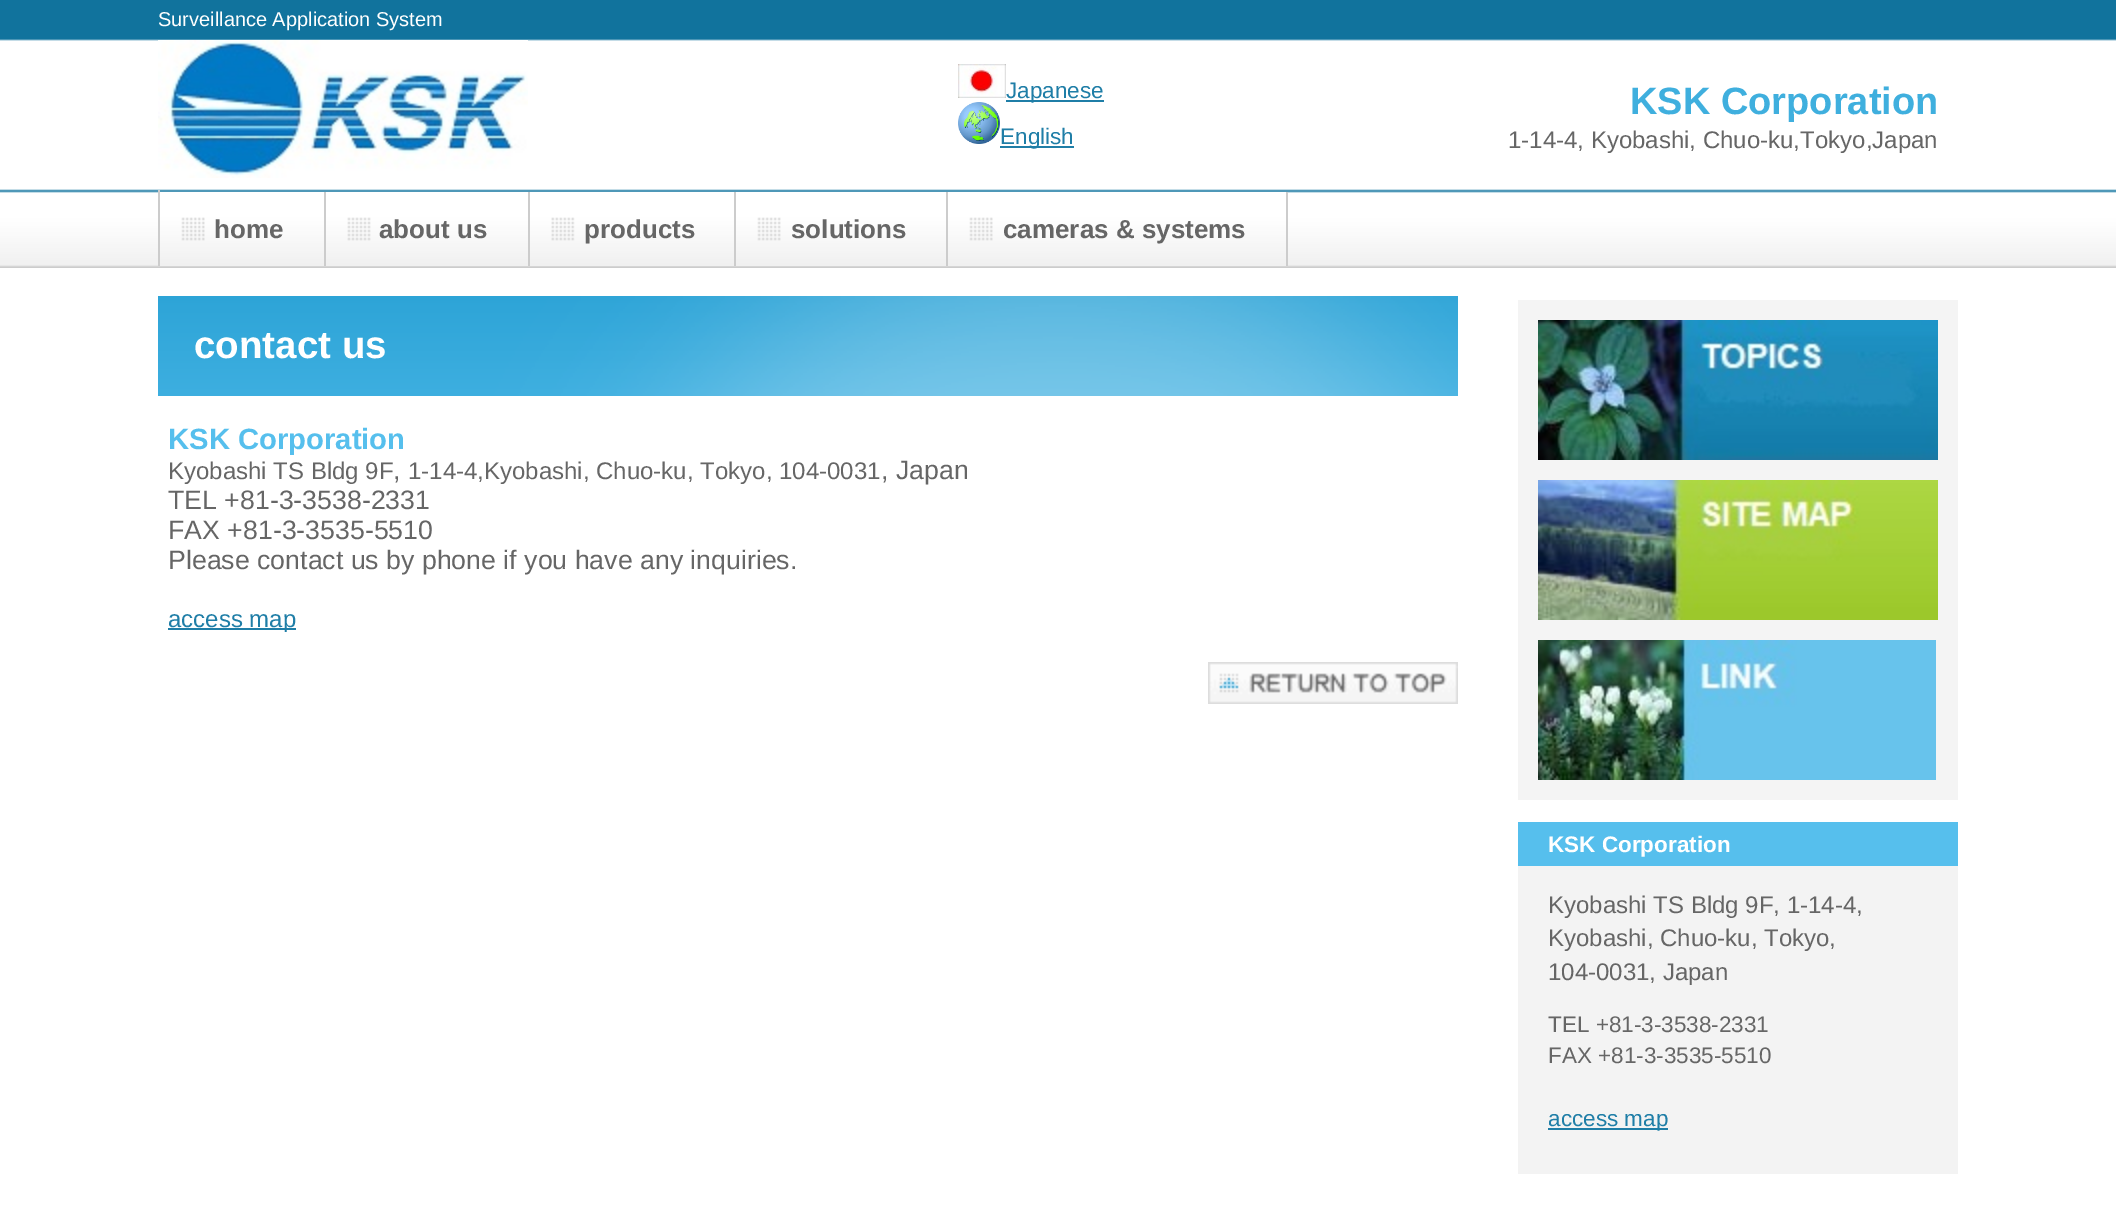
%!PS-Adobe-3.0
%%BoundingBox: 0 0 2116 1214
%%LanguageLevel: 3
%%Pages: 1
%%EndComments
%%BeginProlog
/drawimage { 5 dict begin { /h /w /y /x /name } { exch def } forall
  gsave x y translate w h scale
  w h 8 [w 0 0 h 0 0] name (r) file false 3 colorimage grestore end } def
%%EndProlog
%%BeginSetup
<< /PageSize [2116 1214] >> setpagedevice
%%EndSetup
%%Page: 1 1
0 1214 translate 1 -1 scale
4 setmiterlimit
1 setgray
0 0 2116 1214 rectfill
(images/1.raw) 0 0 2116 268 drawimage
(images/2.raw) 158 40 370 138 drawimage
(images/3.raw) 958 64 48 34 drawimage
0.122 0.494 0.655 setrgbcolor
1006 100 98 2 rectfill
(images/4.raw) 958 102 42 42 drawimage
1000 146 74 2 rectfill
0.8 setgray
158 190 2 76 rectfill
324 192 2 74 rectfill
(images/5.raw) 160 192 164 74 drawimage
528 192 2 74 rectfill
(images/6.raw) 326 192 202 74 drawimage
734 192 2 74 rectfill
(images/7.raw) 530 192 204 74 drawimage
946 192 2 74 rectfill
(images/8.raw) 736 192 210 74 drawimage
1286 192 2 74 rectfill
(images/9.raw) 948 192 338 74 drawimage
(images/10.raw) 158 296 1300 100 drawimage
0.122 0.494 0.655 setrgbcolor
168 628 128 2 rectfill
(images/11.raw) 1208 662 250 42 drawimage
0.957 setgray
1518 300 440 500 rectfill
(images/12.raw) 1538 320 400 140 drawimage
(images/13.raw) 1538 480 400 140 drawimage
(images/14.raw) 1538 640 398 140 drawimage
0.953 setgray
1518 866 440 308 rectfill
0.337 0.749 0.929 setrgbcolor
1518 822 440 44 rectfill
0.122 0.494 0.655 setrgbcolor
1548 1128 120 2 rectfill
/LiberationSans-Regular [20 0 0 -20 0 0] selectfont
1 setgray
158 26 moveto (Surveillance Application System) show
/LiberationSans-Regular [22.5 0 0 -22.5 0 0] selectfont
0.122 0.494 0.655 setrgbcolor
1006 98 moveto (Japanese) show
/LiberationSans-Bold [38 0 0 -38 0 0] selectfont
0.247 0.686 0.871 setrgbcolor
1630 114 moveto (KSK Corporation) show
/LiberationSans-Regular [24 0 0 -24 0 0] selectfont
0.4 setgray
1508 148 moveto (1-14-4, Kyobashi, Chuo-ku,Tokyo,Japan) show
/LiberationSans-Regular [22.5 0 0 -22.5 0 0] selectfont
0.122 0.494 0.655 setrgbcolor
1000 144 moveto (English) show
/LiberationSans-Bold [26 0 0 -26 0 0] selectfont
0.4 setgray
214 238 moveto (home) show
379 238 moveto (about us) show
584 238 moveto (products) show
791 238 moveto (solutions) show
1003 238 moveto (cameras & systems) show
/LiberationSans-Bold [38.5 0 0 -38.5 0 0] selectfont
1 setgray
194 358 moveto (contact us) show
/LiberationSans-Bold [29.25 0 0 -29.25 0 0] selectfont
0.337 0.749 0.929 setrgbcolor
168 449 moveto (KSK Corporation) show
/LiberationSans-Regular [24 0 0 -24 0 0] selectfont
0.4 setgray
168 479 moveto (Kyobashi TS Bldg 9F) show
/LiberationSans-Regular [26.7 0 0 -26.7 0 0] selectfont
393 479 moveto (,) show
/LiberationSans-Regular [24 0 0 -24 0 0] selectfont
408 479 moveto (1-14-4,Kyobashi, Chuo-ku, Tokyo, 104-0031) show
/LiberationSans-Regular [26.7 0 0 -26.7 0 0] selectfont
881 479 moveto (, Japan) show
168 509 moveto (TEL +81-3-3538-2331) show
168 539 moveto (FAX +81-3-3535-5510) show
168 569 moveto (Please contact us by phone if you have any inquiries.) show
/LiberationSans-Regular [24 0 0 -24 0 0] selectfont
0.122 0.494 0.655 setrgbcolor
168 627 moveto (access map) show
/LiberationSans-Bold [22.5 0 0 -22.5 0 0] selectfont
1 setgray
1548 852 moveto (KSK Corporation) show
/LiberationSans-Regular [24 0 0 -24 0 0] selectfont
0.4 setgray
1548 913 moveto (Kyobashi TS Bldg 9F, 1-14-4,) show
1548 946 moveto (Kyobashi, Chuo-ku, Tokyo,) show
1548 980 moveto (104-0031, Japan) show
/LiberationSans-Regular [22.5 0 0 -22.5 0 0] selectfont
1548 1032 moveto (TEL +81-3-3538-2331) show
1548 1063 moveto (FAX +81-3-3535-5510) show
0.122 0.494 0.655 setrgbcolor
1548 1126 moveto (access map) show
showpage
%%EOF
